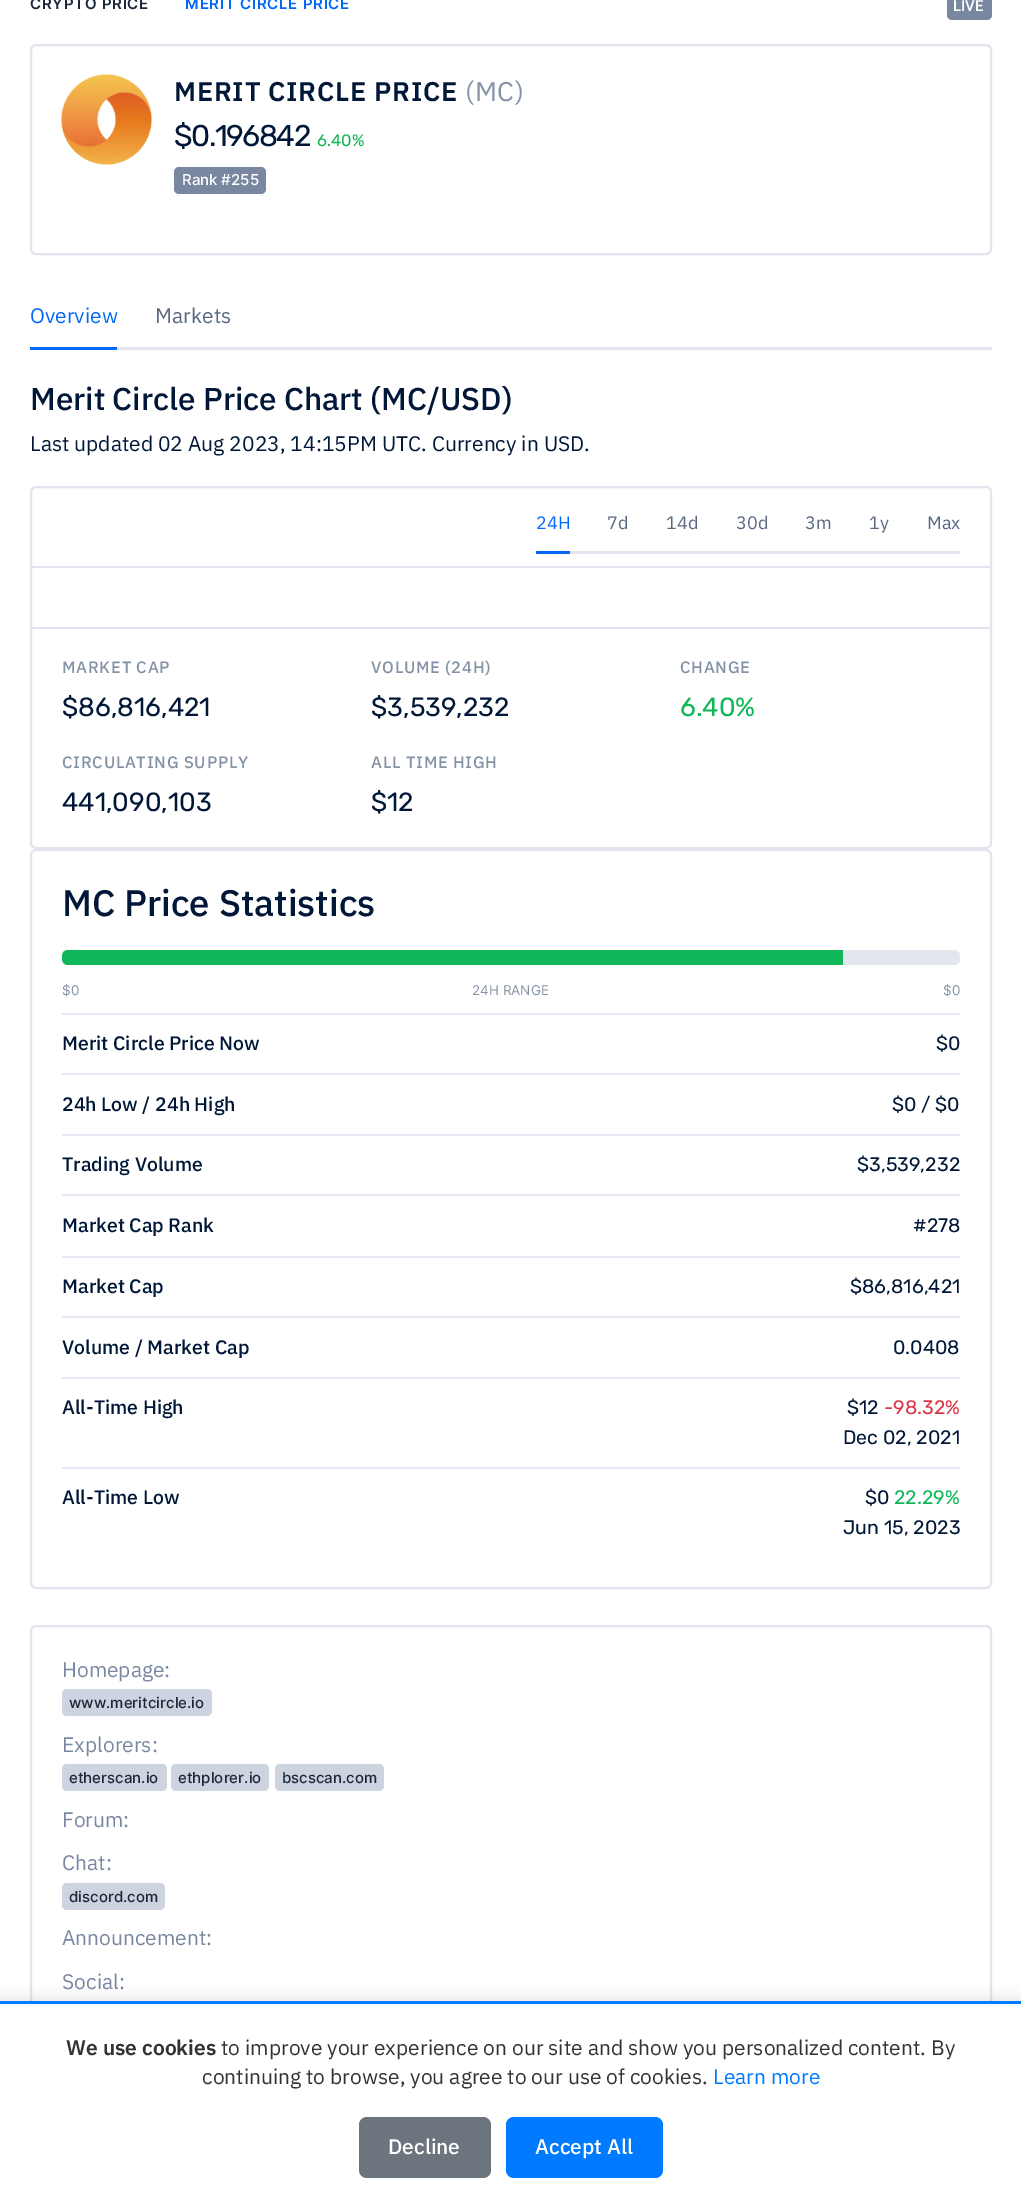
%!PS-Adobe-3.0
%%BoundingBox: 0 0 1021 2207
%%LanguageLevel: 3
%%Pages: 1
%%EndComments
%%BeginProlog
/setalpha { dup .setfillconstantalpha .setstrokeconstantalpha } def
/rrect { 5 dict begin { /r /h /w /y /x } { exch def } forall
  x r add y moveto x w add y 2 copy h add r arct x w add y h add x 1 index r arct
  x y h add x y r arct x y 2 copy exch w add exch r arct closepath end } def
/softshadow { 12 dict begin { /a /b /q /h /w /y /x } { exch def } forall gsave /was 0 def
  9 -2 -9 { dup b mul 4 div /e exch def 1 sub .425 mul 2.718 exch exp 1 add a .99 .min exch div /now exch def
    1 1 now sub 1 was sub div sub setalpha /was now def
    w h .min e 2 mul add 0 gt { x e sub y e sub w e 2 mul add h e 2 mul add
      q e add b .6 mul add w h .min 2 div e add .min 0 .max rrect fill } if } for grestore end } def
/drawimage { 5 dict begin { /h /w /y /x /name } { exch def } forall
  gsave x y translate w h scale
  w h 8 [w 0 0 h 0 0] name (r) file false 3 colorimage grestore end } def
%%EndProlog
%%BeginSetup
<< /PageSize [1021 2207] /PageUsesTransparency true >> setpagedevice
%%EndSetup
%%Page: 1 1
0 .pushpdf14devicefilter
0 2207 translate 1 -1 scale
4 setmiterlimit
1 setgray
0 0 1021 2207 rectfill
0.475 0.529 0.631 setrgbcolor
947 -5 45 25 5 rrect fill
0.886 0.898 0.929 setrgbcolor
2 setlinewidth
31 45 960 209 5 rrect stroke
(images/1.raw) 61 74 91 91 drawimage
0.475 0.529 0.631 setrgbcolor
174 167 92 27 5 rrect fill
0.886 0.898 0.929 setrgbcolor
117 347 875 3 rectfill
0.004 0.408 0.98 setrgbcolor
30 347 87 3 rectfill
0.886 0.898 0.929 setrgbcolor
31 487 960 361 5 rrect stroke
32 566 958 2 rectfill
570 551 390 3 rectfill
0.004 0.408 0.98 setrgbcolor
536 551 34 3 rectfill
0.886 0.898 0.929 setrgbcolor
32 627 958 2 rectfill
31 850 960 738 5 rrect stroke
0.89 0.906 0.929 setrgbcolor
62 950 898 15 6 rrect fill
0.063 0.718 0.349 setrgbcolor
newpath 68 950 moveto 843 950 lineto 843 965 lineto 68 965 lineto 64.5 965 62 962.5 62 959 curveto 62 956 lineto 62 952.5 64.5 950 68 950 curveto closepath fill
0.898 0.914 0.949 setrgbcolor
62 1013 898 2 rectfill
62 1073 898 2 rectfill
62 1134 898 2 rectfill
62 1194 898 2 rectfill
62 1256 898 2 rectfill
62 1316 898 2 rectfill
62 1377 898 2 rectfill
62 1467 898 2 rectfill
0.886 0.898 0.929 setrgbcolor
31 1626 960 554 5 rrect stroke
0.804 0.831 0.878 setrgbcolor
62 1689 150 27 5 rrect fill
62 1764 105 27 5 rrect fill
171 1764 98 27 5 rrect fill
275 1764 109 27 5 rrect fill
62 1883 103 27 5 rrect fill
0 setgray
0 1998 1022 207 0 7.5 0.1 softshadow
1 setgray
0 2004 1021 203 rectfill
0 0.482 1 setrgbcolor
0 2001 1021 3 rectfill
0.424 0.459 0.49 setrgbcolor
359 2117 132 61 8 rrect fill
0 0.482 1 setrgbcolor
506 2117 157 61 8 rrect fill
/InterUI-SemiBold [15 0 0 -15 0 0] selectfont
0.11 0.153 0.235 setrgbcolor
30 9 moveto 0.75 0 (CRYPTO PRICE) ashow
0.004 0.408 0.98 setrgbcolor
185 9 moveto 0.75 0 (MERIT CIRCLE PRICE) ashow
/Roboto-Medium [15 0 0 -15 0 0] selectfont
1 setgray
953 11 moveto (LIVE) show
/IBMPlexSans-SemiBold [27 0 0 -27 0 0] selectfont
0 0.09 0.216 setrgbcolor
174 101 moveto 0.75 0 (MERIT CIRCLE PRICE) ashow
/IBMPlexSans-Regular [27 0 0 -27 0 0] selectfont
0.514 0.573 0.647 setrgbcolor
465 101 moveto 0.75 0 (\(MC\)) ashow
/Rubik-Regular [30 0 0 -30 0 0] selectfont
0 0.09 0.216 setrgbcolor
174 146 moveto -1.5 0 ($0.196842) ashow
/Rubik-Regular [16.5 0 0 -16.5 0 0] selectfont
0.063 0.718 0.349 setrgbcolor
317 146 moveto (6.40%) show
/InterUI-Medium [15 0 0 -15 0 0] selectfont
1 setgray
182 185 moveto (Rank #255) show
/IBMPlexSans-Regular [21 0 0 -21 0 0] selectfont
0.004 0.408 0.98 setrgbcolor
30 323 moveto (Overview) show
0.349 0.408 0.51 setrgbcolor
155 323 moveto (Markets) show
/IBMPlexSans-Medium [31.5 0 0 -31.5 0 0] selectfont
0 0.09 0.216 setrgbcolor
30 410 moveto (Merit Circle Price Chart \(MC/USD\)) show
/IBMPlexSans-Regular [21 0 0 -21 0 0] selectfont
30 451 moveto (Last updated 02 Aug 2023, 14:15PM UTC. Currency in USD.) show
/IBMPlexSans-Regular [18 0 0 -18 0 0] selectfont
0.004 0.408 0.98 setrgbcolor
536 529 moveto (24H) show
0.349 0.408 0.51 setrgbcolor
607 529 moveto (7d) show
666 529 moveto (14d) show
736 529 moveto (30d) show
805 529 moveto (3m) show
869 529 moveto (1y) show
927 529 moveto (Max) show
/IBMPlexSans-Medium [16.5 0 0 -16.5 0 0] selectfont
0.514 0.573 0.647 setrgbcolor
62 673 moveto 0.75 0 (MARKET CAP) ashow
/Rubik-Regular [26.25 0 0 -26.25 0 0] selectfont
0 0.09 0.216 setrgbcolor
62 716 moveto ($86,816,421) show
/IBMPlexSans-Medium [16.5 0 0 -16.5 0 0] selectfont
0.514 0.573 0.647 setrgbcolor
371 673 moveto 0.75 0 (VOLUME \(24H\)) ashow
/Rubik-Regular [26.25 0 0 -26.25 0 0] selectfont
0 0.09 0.216 setrgbcolor
371 716 moveto ($3,539,232) show
/IBMPlexSans-Medium [16.5 0 0 -16.5 0 0] selectfont
0.514 0.573 0.647 setrgbcolor
680 673 moveto 0.75 0 (CHANGE) ashow
/Rubik-Regular [26.25 0 0 -26.25 0 0] selectfont
0.063 0.718 0.349 setrgbcolor
680 716 moveto (6.40%) show
/IBMPlexSans-Medium [16.5 0 0 -16.5 0 0] selectfont
0.514 0.573 0.647 setrgbcolor
62 768 moveto 0.75 0 (CIRCULATING SUPPLY) ashow
/Rubik-Regular [26.25 0 0 -26.25 0 0] selectfont
0 0.09 0.216 setrgbcolor
62 811 moveto (441,090,103) show
/IBMPlexSans-Medium [16.5 0 0 -16.5 0 0] selectfont
0.514 0.573 0.647 setrgbcolor
371 768 moveto 0.75 0 (ALL TIME HIGH) ashow
/Rubik-Regular [26.25 0 0 -26.25 0 0] selectfont
0 0.09 0.216 setrgbcolor
371 811 moveto ($12) show
/IBMPlexSans-Medium [36.75 0 0 -36.75 0 0] selectfont
62 916 moveto (MC Price Statistics) show
/InterUI-Regular [13.5 0 0 -13.5 0 0] selectfont
0.514 0.573 0.647 setrgbcolor
62 995 moveto ($0) show
472 995 moveto (24H RANGE) show
943 995 moveto ($0) show
/IBMPlexSans-Medium [19.5 0 0 -19.5 0 0] selectfont
0 0.09 0.216 setrgbcolor
62 1050 moveto (Merit Circle Price Now) show
/Rubik-Regular [19.5 0 0 -19.5 0 0] selectfont
936 1050 moveto ($0) show
/IBMPlexSans-Medium [19.5 0 0 -19.5 0 0] selectfont
62 1111 moveto (24h Low / 24h High) show
/Rubik-Regular [19.5 0 0 -19.5 0 0] selectfont
892 1111 moveto ($0 / $0) show
/IBMPlexSans-Medium [19.5 0 0 -19.5 0 0] selectfont
62 1171 moveto (Trading Volume) show
/Rubik-Regular [19.5 0 0 -19.5 0 0] selectfont
857 1171 moveto ($3,539,232) show
/IBMPlexSans-Medium [19.5 0 0 -19.5 0 0] selectfont
62 1232 moveto (Market Cap Rank) show
/Rubik-Regular [19.5 0 0 -19.5 0 0] selectfont
913 1232 moveto (#278) show
/IBMPlexSans-Medium [19.5 0 0 -19.5 0 0] selectfont
62 1293 moveto (Market Cap) show
/Rubik-Regular [19.5 0 0 -19.5 0 0] selectfont
850 1293 moveto ($86,816,421) show
/IBMPlexSans-Medium [19.5 0 0 -19.5 0 0] selectfont
62 1354 moveto (Volume / Market Cap) show
/Rubik-Regular [19.5 0 0 -19.5 0 0] selectfont
893 1354 moveto (0.0408) show
/IBMPlexSans-Medium [19.5 0 0 -19.5 0 0] selectfont
62 1414 moveto (All-Time High) show
/Rubik-Regular [19.5 0 0 -19.5 0 0] selectfont
847 1414 moveto ($12) show
0.863 0.208 0.271 setrgbcolor
884 1414 moveto (-98.32%) show
0 0.09 0.216 setrgbcolor
843 1444 moveto (Dec 02, 2021) show
/IBMPlexSans-Medium [19.5 0 0 -19.5 0 0] selectfont
62 1504 moveto (All-Time Low) show
/Rubik-Regular [19.5 0 0 -19.5 0 0] selectfont
865 1504 moveto ($0) show
0.063 0.718 0.349 setrgbcolor
894 1504 moveto (22.29%) show
0 0.09 0.216 setrgbcolor
843 1534 moveto (Jun 15, 2023) show
/IBMPlexSans-Regular [21 0 0 -21 0 0] selectfont
0.475 0.529 0.631 setrgbcolor
62 1677 moveto (Homepage:) show
/InterUI-Medium [15 0 0 -15 0 0] selectfont
0.11 0.153 0.235 setrgbcolor
69 1708 moveto (www.meritcircle.io) show
/IBMPlexSans-Regular [21 0 0 -21 0 0] selectfont
0.475 0.529 0.631 setrgbcolor
62 1752 moveto (Explorers:) show
/InterUI-Medium [15 0 0 -15 0 0] selectfont
0.11 0.153 0.235 setrgbcolor
69 1783 moveto (etherscan.io) show
178 1783 moveto (ethplorer.io) show
282 1783 moveto (bscscan.com) show
/IBMPlexSans-Regular [21 0 0 -21 0 0] selectfont
0.475 0.529 0.631 setrgbcolor
62 1827 moveto (Forum:) show
62 1870 moveto (Chat:) show
/InterUI-Medium [15 0 0 -15 0 0] selectfont
0.11 0.153 0.235 setrgbcolor
69 1902 moveto (discord.com) show
/IBMPlexSans-Regular [21 0 0 -21 0 0] selectfont
0.475 0.529 0.631 setrgbcolor
62 1945 moveto (Announcement:) show
62 1989 moveto (Social:) show
/IBMPlexSans-SemiBold [21 0 0 -21 0 0] selectfont
0.2 setgray
66 2055 moveto (We use cookies) show
/IBMPlexSans-Regular [21 0 0 -21 0 0] selectfont
221 2055 moveto (to improve your experience on our site and show you personalized content. By) show
202 2084 moveto (continuing to browse, you agree to our use of cookies.) show
0 0.482 1 setrgbcolor
713 2084 moveto (Learn more) show
/IBMPlexSans-Medium [21 0 0 -21 0 0] selectfont
1 setgray
388 2154 moveto (Decline) show
535 2154 moveto (Accept All) show
.poppdf14devicefilter showpage
%%EOF
